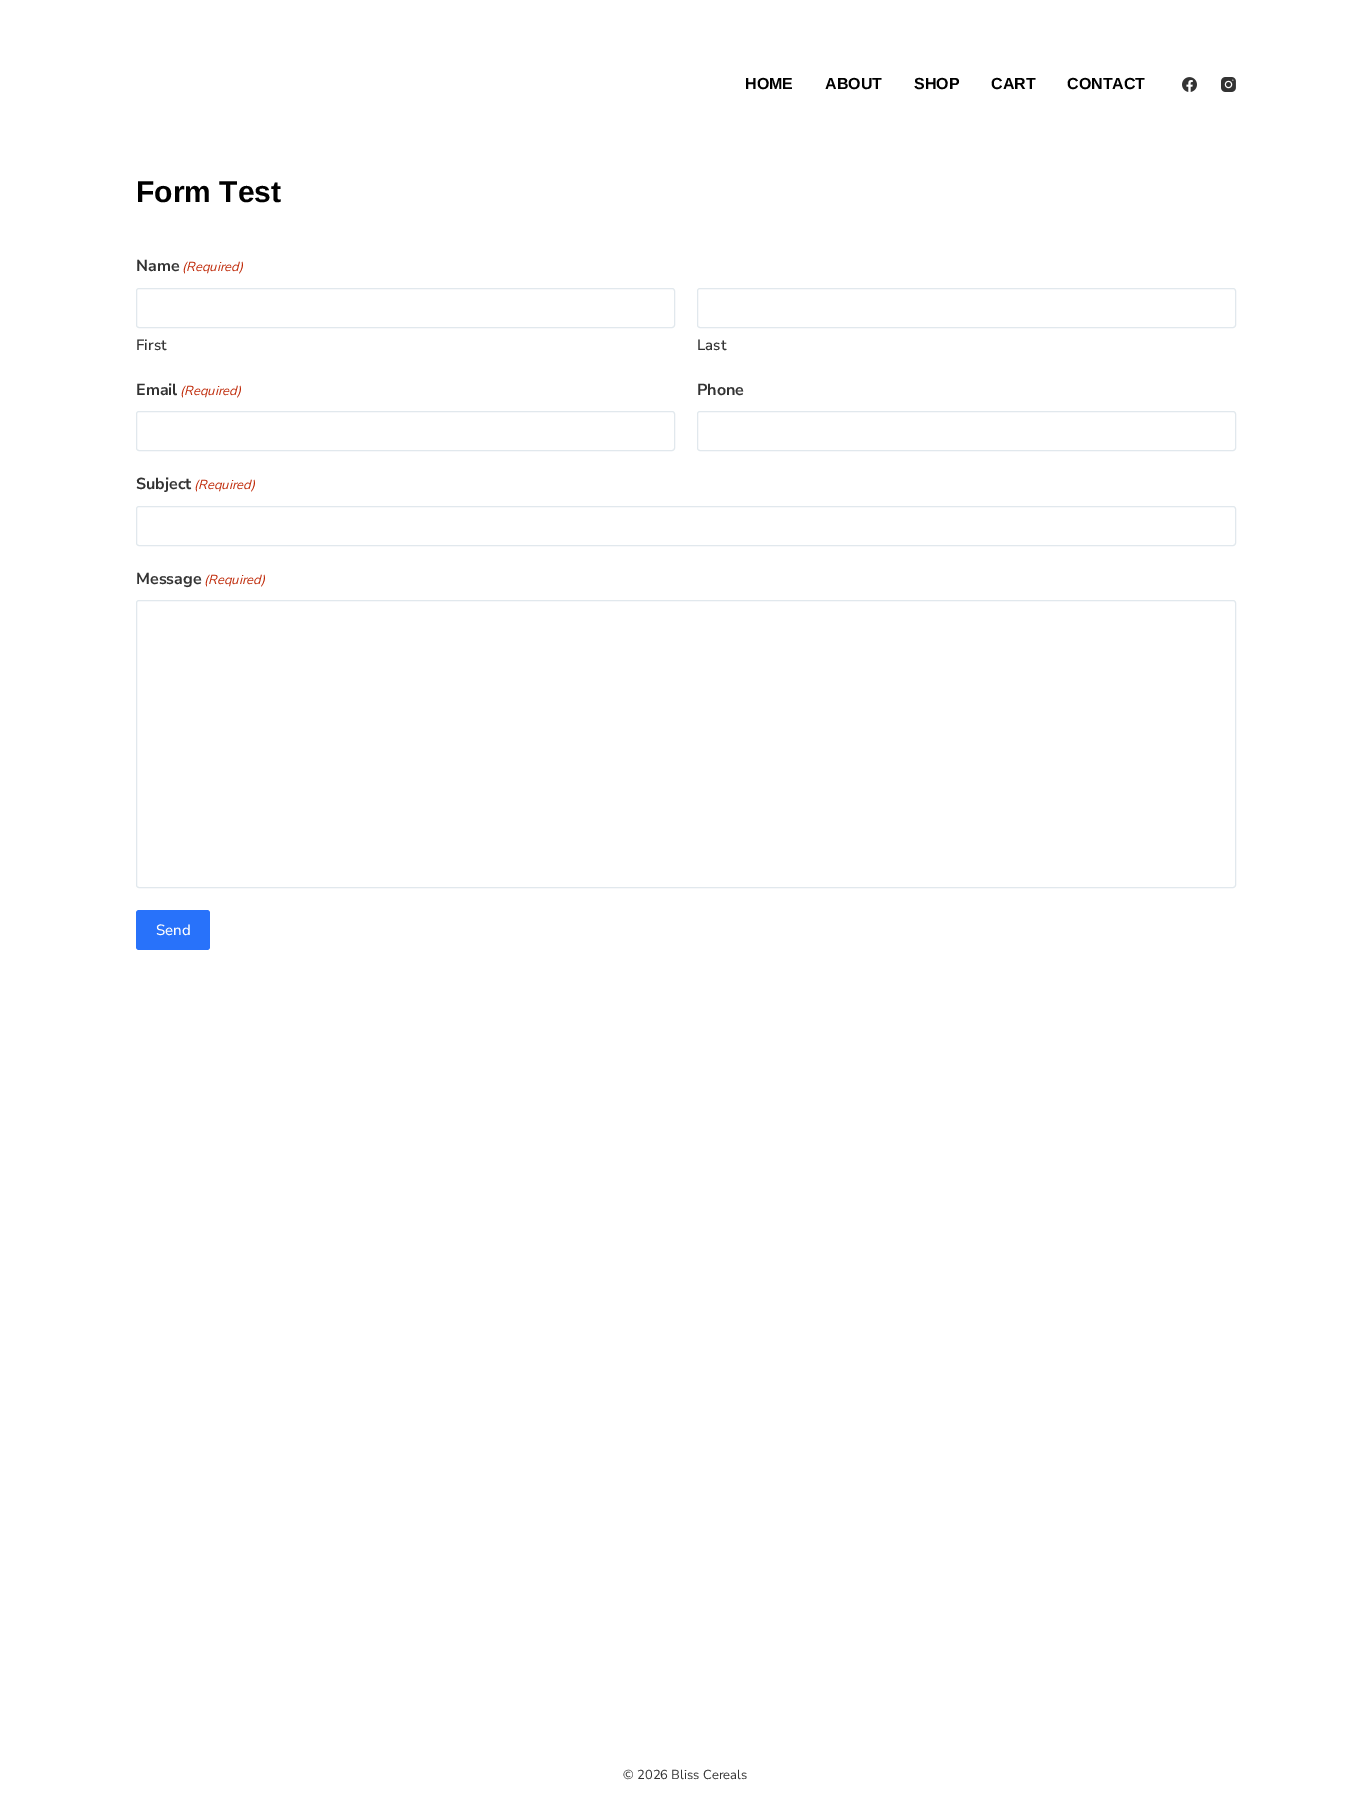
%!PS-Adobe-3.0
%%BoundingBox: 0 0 1371 1809
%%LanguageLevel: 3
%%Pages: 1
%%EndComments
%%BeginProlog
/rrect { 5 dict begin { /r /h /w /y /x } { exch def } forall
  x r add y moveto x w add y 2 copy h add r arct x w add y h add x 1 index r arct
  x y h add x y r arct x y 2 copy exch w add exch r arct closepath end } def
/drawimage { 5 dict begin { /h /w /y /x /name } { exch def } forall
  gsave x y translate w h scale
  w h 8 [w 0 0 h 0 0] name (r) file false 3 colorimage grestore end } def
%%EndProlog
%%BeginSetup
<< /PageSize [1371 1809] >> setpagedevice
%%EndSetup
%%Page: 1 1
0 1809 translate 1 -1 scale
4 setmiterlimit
1 setgray
0 0 1371 1809 rectfill
(images/1.raw) 1182 77 15 15 drawimage
(images/2.raw) 1221 77 15 15 drawimage
0.882 0.91 0.929 setrgbcolor
136.5 288.5 538 39 2.5 rrect stroke
697.5 288.5 538 39 2.5 rrect stroke
136.5 411.5 538 39 2.5 rrect stroke
697.5 411.5 538 39 2.5 rrect stroke
136.5 506.5 1099 39 2.5 rrect stroke
136.5 600.5 1099 287 2.5 rrect stroke
0.157 0.447 0.98 setrgbcolor
136 910 74 40 3 rrect fill
/LiberationSans-Bold [16 0 0 -16 0 0] selectfont
0 setgray
745 89 moveto (HOME) show
825 89 moveto (ABOUT) show
914 89 moveto (SHOP) show
991 89 moveto (CART) show
1067 89 moveto (CONTACT) show
/LiberationSans-Bold [30 0 0 -30 0 0] selectfont
136 202 moveto (Form Test) show
/NunitoSans-Bold [16 0 0 -16 0 0] selectfont
0.2 setgray
136 271 moveto (Name) show
/NunitoSans-Italic [13 0 0 -13 0 0] selectfont
0.753 0.169 0.039 setrgbcolor
182 271 moveto (\(Required\)) show
/NunitoSans-SemiBold [15 0 0 -15 0 0] selectfont
0.2 setgray
136 350 moveto (First) show
697 350 moveto (Last) show
/NunitoSans-Bold [16 0 0 -16 0 0] selectfont
136 395 moveto (Email) show
/NunitoSans-Italic [13 0 0 -13 0 0] selectfont
0.753 0.169 0.039 setrgbcolor
180 395 moveto (\(Required\)) show
/NunitoSans-Bold [16 0 0 -16 0 0] selectfont
0.2 setgray
697 395 moveto (Phone) show
136 489 moveto (Subject) show
/NunitoSans-Italic [13 0 0 -13 0 0] selectfont
0.753 0.169 0.039 setrgbcolor
194 489 moveto (\(Required\)) show
/NunitoSans-Bold [16 0 0 -16 0 0] selectfont
0.2 setgray
136 584 moveto (Message) show
/NunitoSans-Italic [13 0 0 -13 0 0] selectfont
0.753 0.169 0.039 setrgbcolor
204 584 moveto (\(Required\)) show
/NunitoSans-Medium [15 0 0 -15 0 0] selectfont
1 setgray
156 935 moveto (Send) show
/NunitoSans-Regular [13 0 0 -13 0 0] selectfont
0.2 setgray
623 1779 moveto (© 2026 Bliss Cereals) show
showpage
%%EOF
